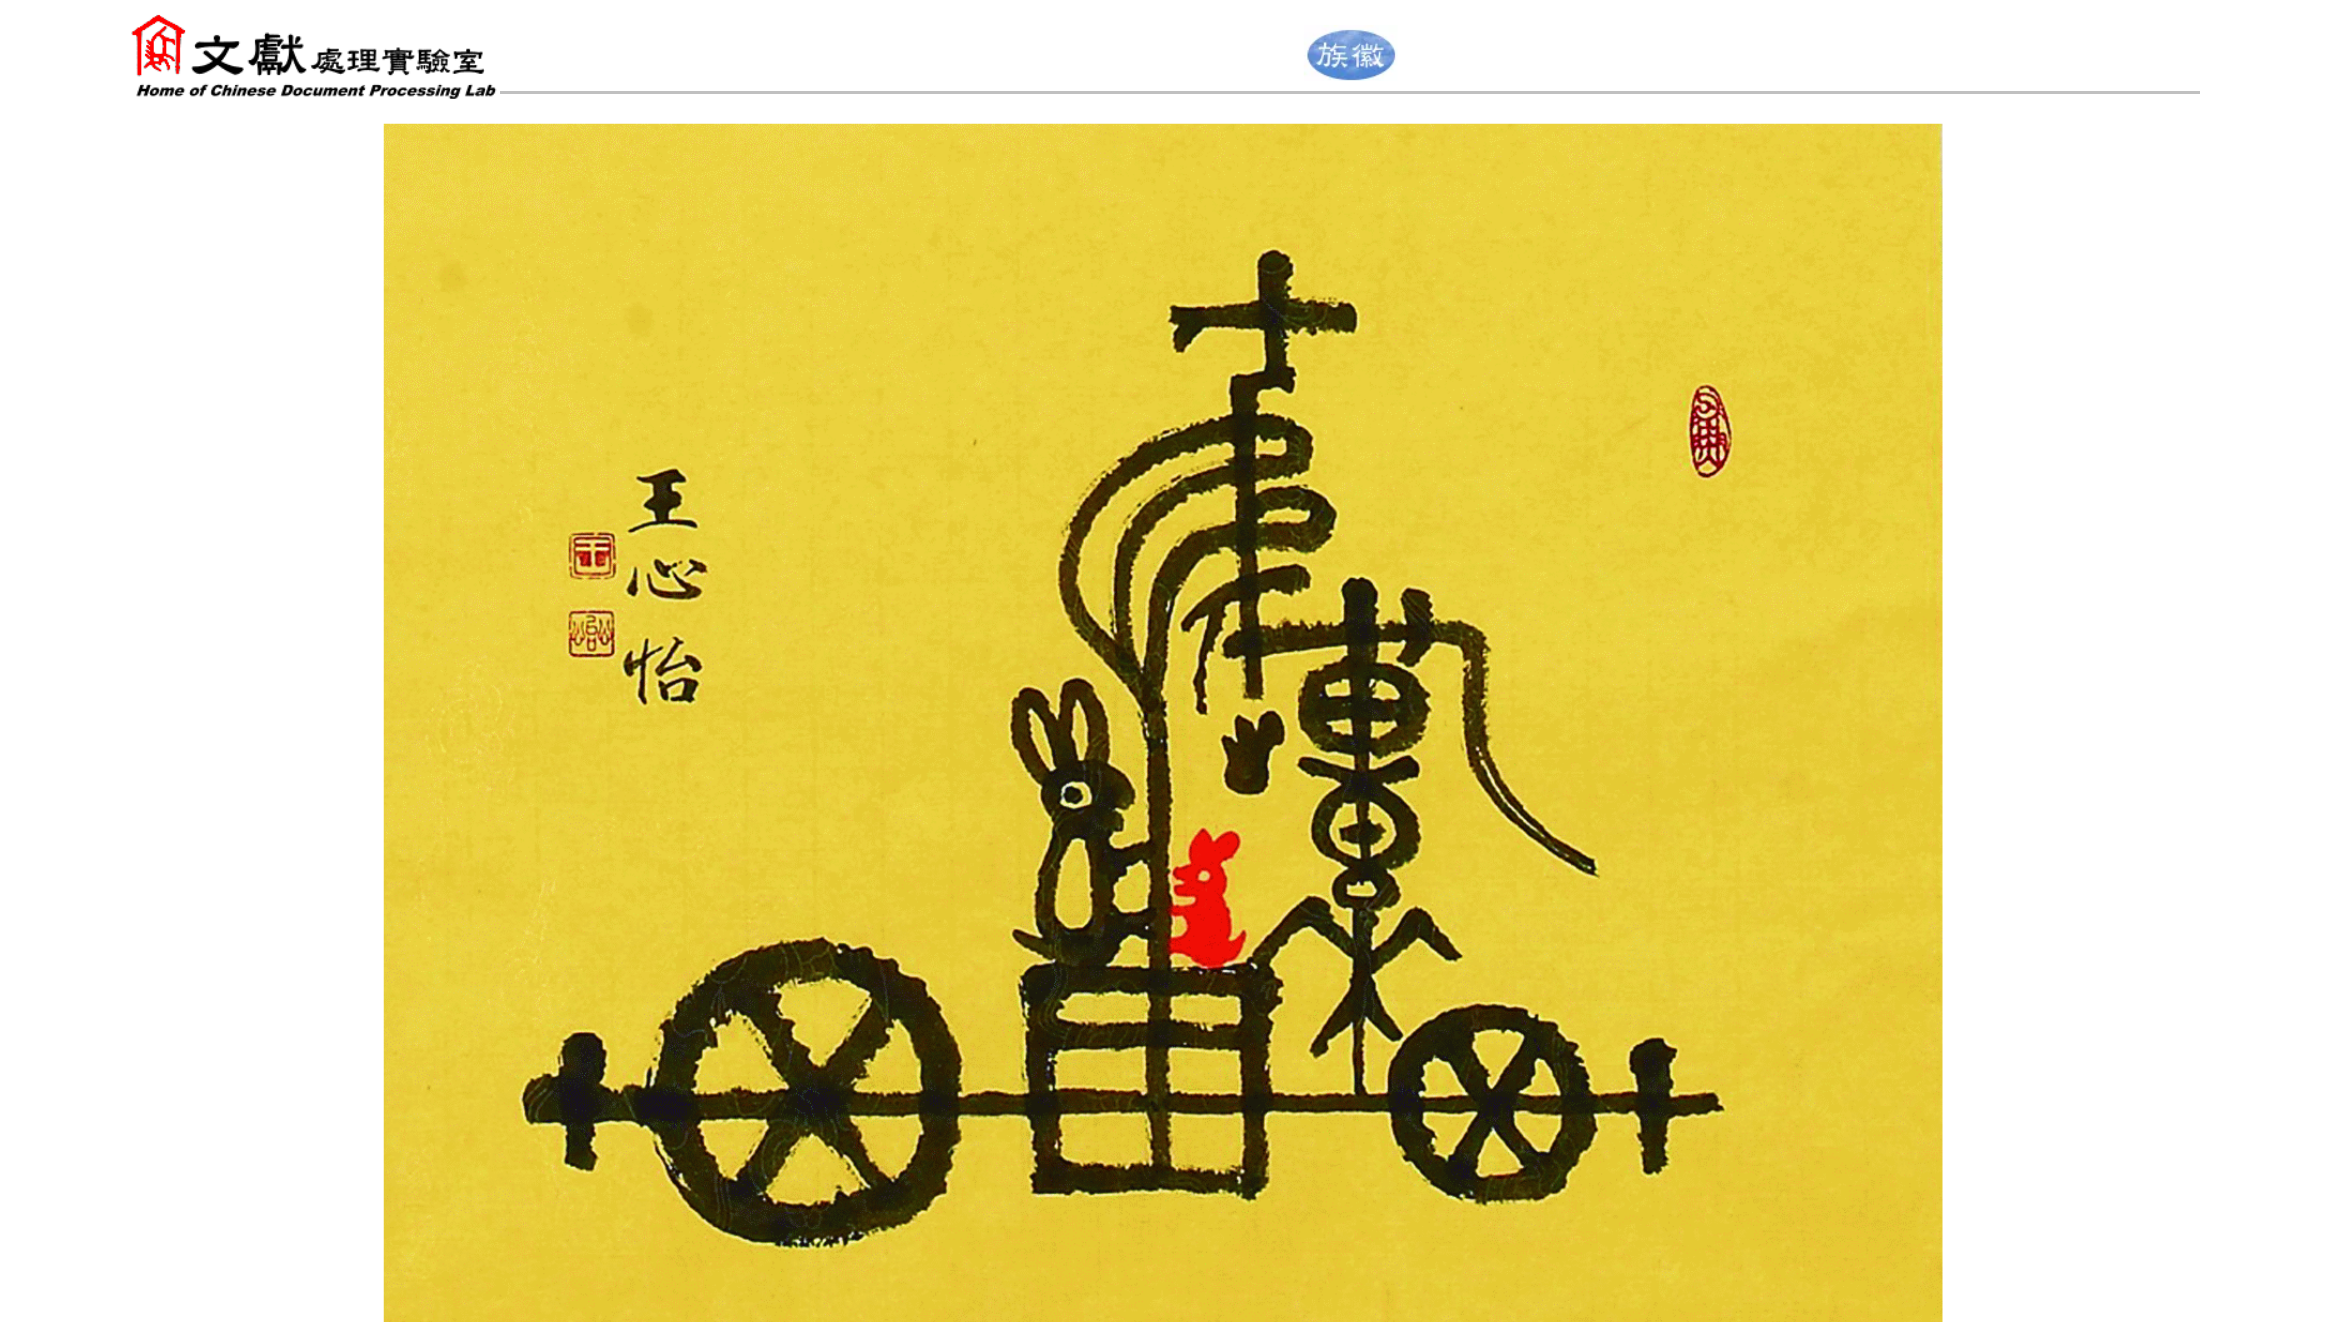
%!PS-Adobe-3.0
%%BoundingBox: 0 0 2325 1322
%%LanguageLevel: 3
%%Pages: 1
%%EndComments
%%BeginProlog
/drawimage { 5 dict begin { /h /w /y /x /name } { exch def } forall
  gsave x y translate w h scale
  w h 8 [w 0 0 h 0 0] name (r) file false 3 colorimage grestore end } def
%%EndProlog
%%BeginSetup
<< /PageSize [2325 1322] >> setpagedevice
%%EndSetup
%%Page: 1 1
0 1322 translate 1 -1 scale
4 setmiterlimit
1 setgray
0 0 2325 1322 rectfill
(images/1.raw) 131 14 366 85 drawimage
(images/2.raw) 1303 25 95 56 drawimage
0.753 setgray
500 91 1700 3 rectfill
(images/3.raw) 383 123 1560 1199 drawimage
showpage
%%EOF
